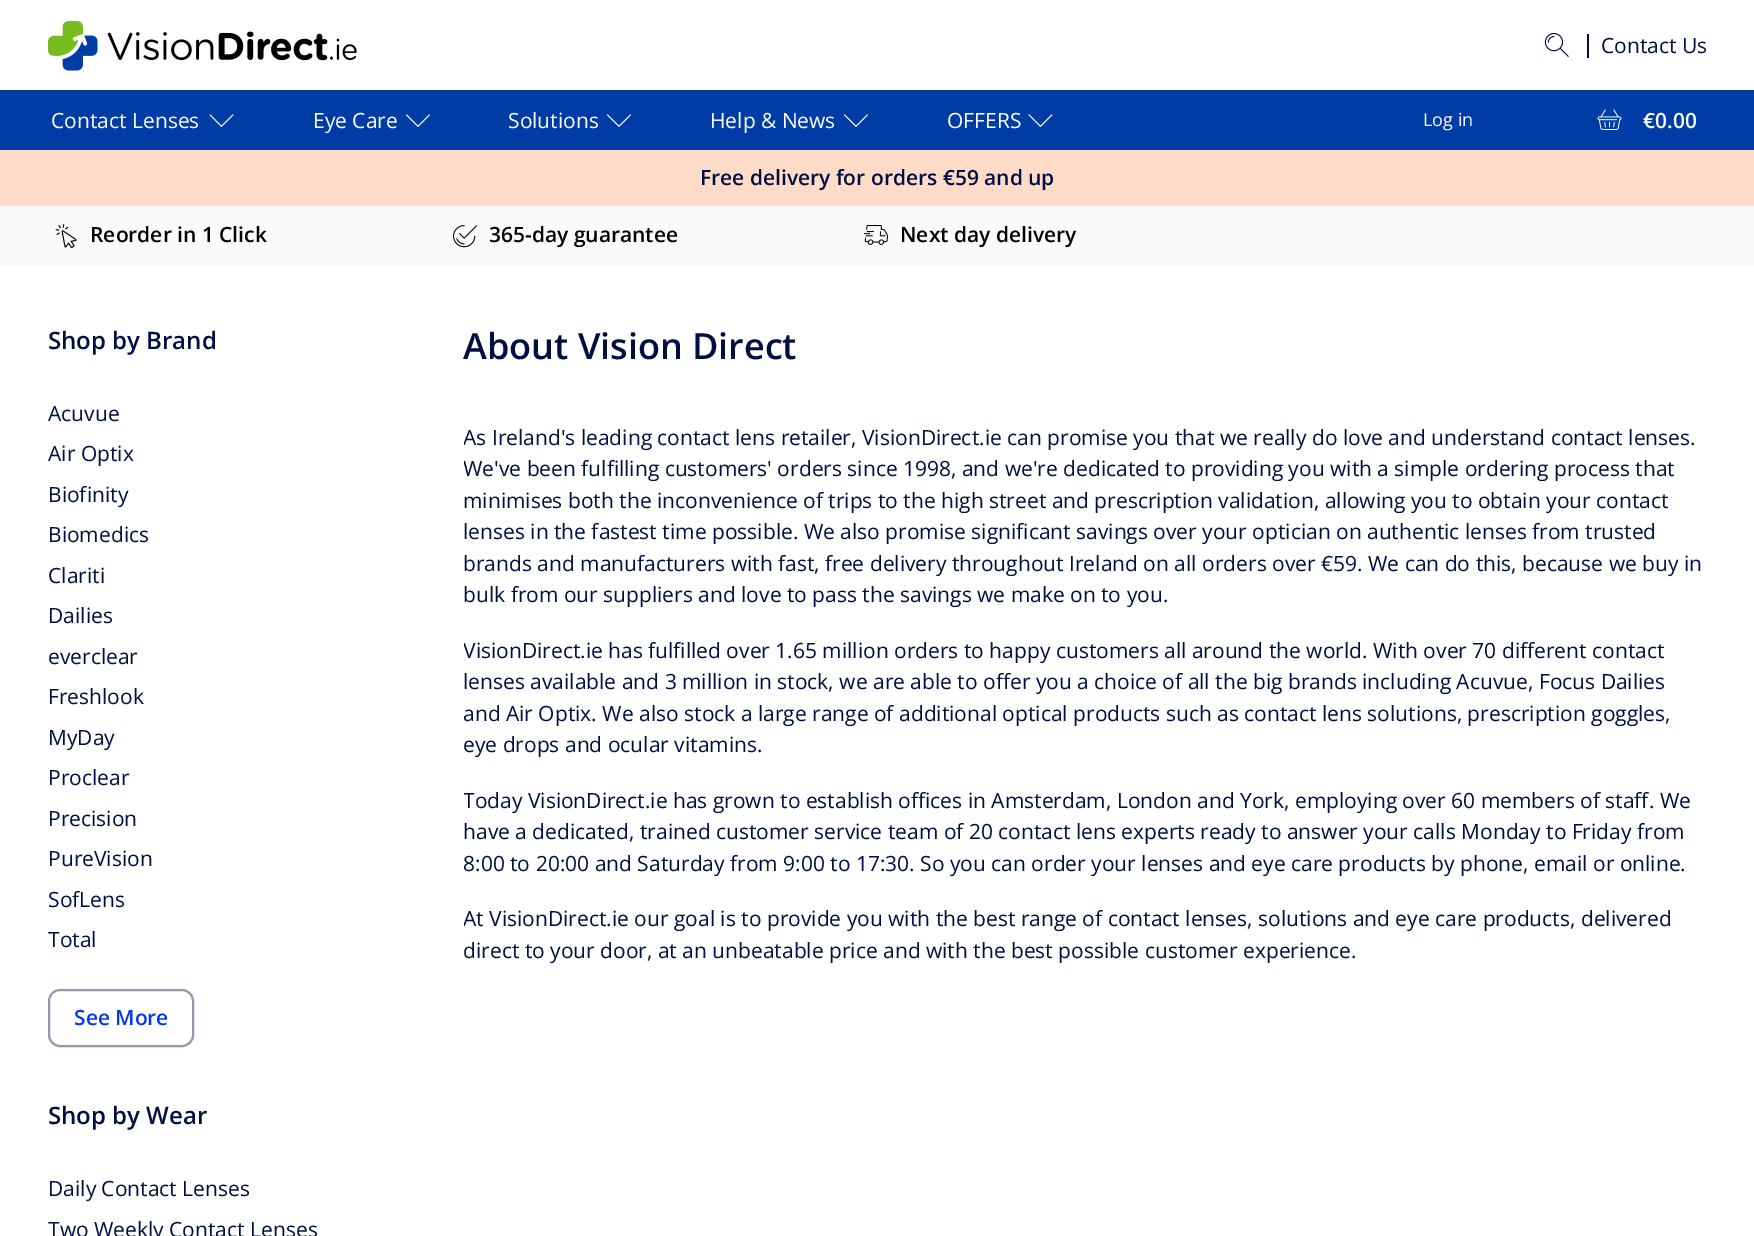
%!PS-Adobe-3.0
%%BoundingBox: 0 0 1754 1236
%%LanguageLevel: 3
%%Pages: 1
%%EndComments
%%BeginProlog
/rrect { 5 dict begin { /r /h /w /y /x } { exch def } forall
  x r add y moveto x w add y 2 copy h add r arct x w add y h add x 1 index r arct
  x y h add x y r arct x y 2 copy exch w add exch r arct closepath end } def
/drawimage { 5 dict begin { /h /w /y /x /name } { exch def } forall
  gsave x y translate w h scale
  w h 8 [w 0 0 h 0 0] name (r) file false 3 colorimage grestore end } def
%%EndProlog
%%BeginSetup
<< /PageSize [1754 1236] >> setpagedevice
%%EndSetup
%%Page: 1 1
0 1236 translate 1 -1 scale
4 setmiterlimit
1 setgray
0 0 1754 1236 rectfill
(images/1.raw) 48 21 309 50 drawimage
(images/2.raw) 1544 33 25 24 drawimage
0 0.059 0.259 setrgbcolor
1587 34 2 24 rectfill
0 0.235 0.651 setrgbcolor
0 90 1754 60 rectfill
(images/3.raw) 209 114 25 13 drawimage
(images/4.raw) 406 114 24 13 drawimage
(images/4.raw) 607 114 24 13 drawimage
(images/4.raw) 844 114 24 13 drawimage
(images/3.raw) 1028 114 25 13 drawimage
(images/5.raw) 1597 109 25 21 drawimage
1 0.859 0.784 setrgbcolor
0 150 1754 56 rectfill
0.98 0.98 0.984 setrgbcolor
0 206 1754 60 rectfill
(images/6.raw) 55 224 22 24 drawimage
(images/7.raw) 453 225 24 23 drawimage
(images/8.raw) 864 225 24 20 drawimage
0.576 0.6 0.678 setrgbcolor
2 setlinewidth
49 990 144 56 11 rrect stroke
/OpenSans-Regular [21 0 0 -21 0 0] selectfont
0 0.059 0.259 setrgbcolor
1601 53 moveto (Contact Us) show
1 setgray
51 128 moveto (Contact Lenses) show
313 128 moveto (Eye Care) show
508 128 moveto (Solutions) show
710 128 moveto (Help & News) show
947 128 moveto (OFFERS) show
/OpenSans-Regular [18 0 0 -18 0 0] selectfont
1423 126 moveto (Log in) show
/OpenSans-SemiBold [21 0 0 -21 0 0] selectfont
1643 128 moveto (€0.00) show
0 0.059 0.259 setrgbcolor
700 185 moveto (Free delivery for orders €59 and up) show
0 setgray
90 242 moveto (Reorder in 1 Click) show
489 242 moveto (365-day guarantee) show
900 242 moveto (Next day delivery) show
/OpenSans-SemiBold [24 0 0 -24 0 0] selectfont
0 0.059 0.259 setrgbcolor
48 349 moveto (Shop by Brand) show
/OpenSans-Regular [21 0 0 -21 0 0] selectfont
48 421 moveto (Acuvue) show
48 461 moveto (Air Optix) show
48 502 moveto (Biofinity) show
48 542 moveto (Biomedics) show
48 583 moveto (Clariti) show
48 623 moveto (Dailies) show
48 664 moveto (everclear) show
48 704 moveto (Freshlook) show
48 745 moveto (MyDay) show
48 785 moveto (Proclear) show
48 826 moveto (Precision) show
48 866 moveto (PureVision) show
48 907 moveto (SofLens) show
48 947 moveto (Total) show
/OpenSans-SemiBold [21 0 0 -21 0 0] selectfont
0.004 0.216 0.937 setrgbcolor
74 1025 moveto (See More) show
/OpenSans-SemiBold [24 0 0 -24 0 0] selectfont
0 0.059 0.259 setrgbcolor
48 1124 moveto (Shop by Wear) show
/OpenSans-Regular [21 0 0 -21 0 0] selectfont
48 1196 moveto (Daily Contact Lenses) show
48 1237 moveto (Two Weekly Contact Lenses) show
/OpenSans-SemiBold [36 0 0 -36 0 0] selectfont
463 359 moveto (About Vision Direct) show
gsave
464 422 1243 544 rectclip
/OpenSans-Regular [21 0 0 -21 0 0] selectfont
463 445 moveto (As Ireland's leading contact lens retailer, VisionDirect.ie can promise you that we really do love and understand contact lenses.) show
463 476 moveto (We've been fulfilling customers' orders since 1998, and we're dedicated to providing you with a simple ordering process that) show
grestore
/OpenSans-Regular [21 0 0 -21 0 0] selectfont
463 508 moveto (minimises both the inconvenience of trips to the high street and prescription validation, allowing you to obtain your contact) show
463 539 moveto (lenses in the fastest time possible. We also promise significant savings over your optician on authentic lenses from trusted) show
463 571 moveto (brands and manufacturers with fast, free delivery throughout Ireland on all orders over €59. We can do this, because we buy in) show
463 602 moveto (bulk from our suppliers and love to pass the savings we make on to you.) show
gsave
464 422 1243 544 rectclip
463 658 moveto (VisionDirect.ie has fulfilled over 1.65 million orders to happy customers all around the world. With over 70 different contact) show
grestore
463 689 moveto (lenses available and 3 million in stock, we are able to offer you a choice of all the big brands including Acuvue, Focus Dailies) show
463 721 moveto (and Air Optix. We also stock a large range of additional optical products such as contact lens solutions, prescription goggles,) show
463 752 moveto (eye drops and ocular vitamins.) show
gsave
464 422 1243 544 rectclip
463 808 moveto (Today VisionDirect.ie has grown to establish offices in Amsterdam, London and York, employing over 60 members of staff. We) show
grestore
463 839 moveto (have a dedicated, trained customer service team of 20 contact lens experts ready to answer your calls Monday to Friday from) show
463 871 moveto (8:00 to 20:00 and Saturday from 9:00 to 17:30. So you can order your lenses and eye care products by phone, email or online.) show
gsave
464 422 1243 544 rectclip
463 926 moveto (At VisionDirect.ie our goal is to provide you with the best range of contact lenses, solutions and eye care products, delivered) show
grestore
463 958 moveto (direct to your door, at an unbeatable price and with the best possible customer experience.) show
showpage
%%EOF
